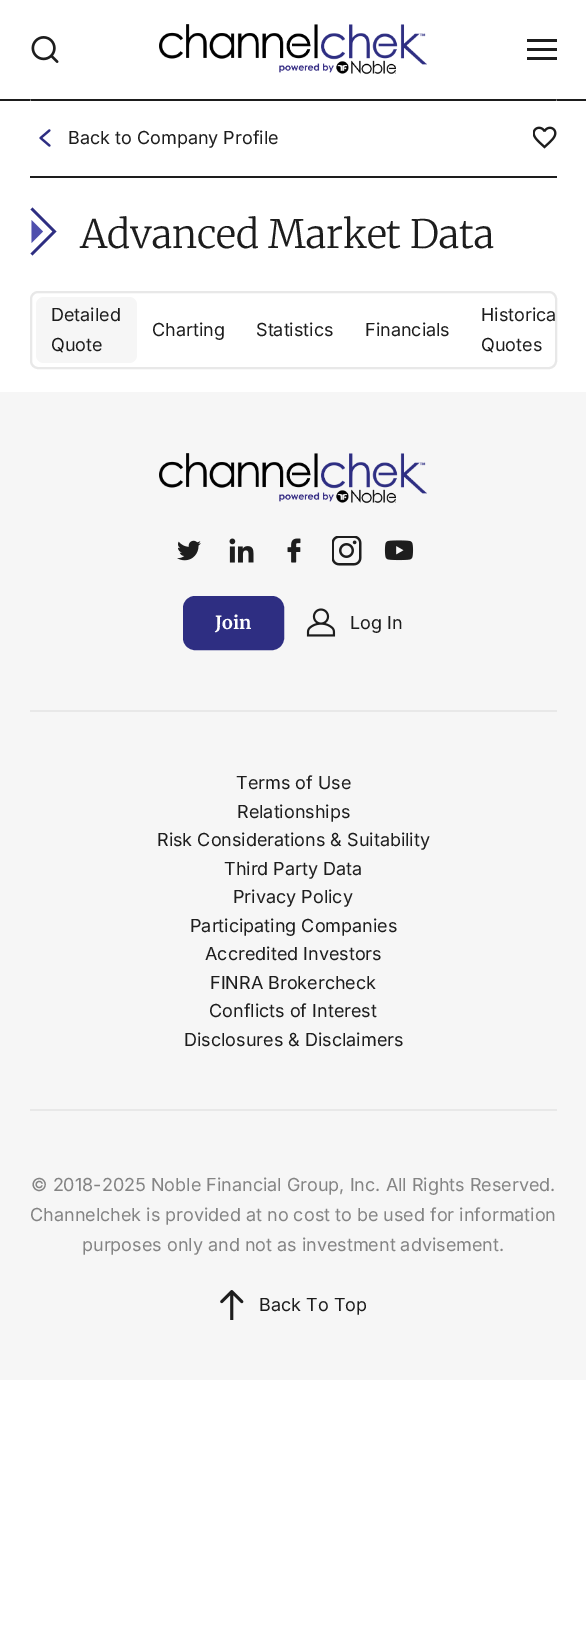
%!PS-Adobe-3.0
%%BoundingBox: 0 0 586 1633
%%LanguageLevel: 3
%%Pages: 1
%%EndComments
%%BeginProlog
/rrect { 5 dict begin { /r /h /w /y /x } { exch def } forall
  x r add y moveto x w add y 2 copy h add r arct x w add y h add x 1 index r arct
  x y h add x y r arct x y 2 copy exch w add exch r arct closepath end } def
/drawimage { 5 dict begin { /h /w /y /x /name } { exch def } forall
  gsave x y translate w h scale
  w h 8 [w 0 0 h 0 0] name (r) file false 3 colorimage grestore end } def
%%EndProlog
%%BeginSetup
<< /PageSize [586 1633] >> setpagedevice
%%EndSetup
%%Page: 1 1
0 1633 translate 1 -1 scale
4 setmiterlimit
1 setgray
0 0 586 1633 rectfill
0.114 setgray
0 99 586 2 rectfill
(images/1.raw) 31 36 28 27 drawimage
(images/2.raw) 159 24 268 51 drawimage
527 39 30 3 rectfill
527 48 30 3 rectfill
527 57 30 3 rectfill
1 setgray
newpath 556.5 99 moveto 556.5 108 lineto 555 106.5 lineto closepath fill
newpath 30 108 moveto 30 99 lineto 31.5 106.5 lineto closepath fill
0.114 setgray
30 176 527 2 rectfill
(images/3.raw) 39 129 12 18 drawimage
(images/4.raw) 533 126 24 23 drawimage
0.31 0.31 0.678 setrgbcolor
newpath 43 231.5 moveto 31.5 220 lineto 31.5 243 lineto closepath fill
0.18 0.18 0.51 setrgbcolor
2.6 setlinewidth
newpath 31.5 208.5 moveto 54.5 231.5 lineto 31.5 254.5 lineto stroke
0.91 setgray
2 setlinewidth
31 292 525 76 7 rrect stroke
0.965 setgray
36 297 101 66 8 rrect fill
0 392 586 988 rectfill
(images/5.raw) 159 453 268 51 drawimage
(images/6.raw) 177 540 24 21 drawimage
(images/7.raw) 229 538 25 25 drawimage
(images/8.raw) 287 538 14 25 drawimage
(images/9.raw) 332 536 30 30 drawimage
(images/10.raw) 384 540 30 21 drawimage
0.18 0.18 0.51 setrgbcolor
184 597 99 52 11 rrect gsave fill grestore
stroke
(images/11.raw) 306 608 30 29 drawimage
0.91 setgray
30 710 527 2 rectfill
30 1109 527 2 rectfill
(images/12.raw) 220 1290 24 30 drawimage
/Inter-Regular [18 0 0 -18 0 0] selectfont
0.114 setgray
68 144 moveto (Back to Company Profile) show
/Merriweather-Light [39 0 0 -39 0 0] selectfont
80 248 moveto (Advanced Market Data) show
/Inter-Regular [18 0 0 -18 0 0] selectfont
51 321 moveto (Detailed) show
51 351 moveto (Quote) show
152 336 moveto (Charting) show
256 336 moveto (Statistics) show
365 336 moveto (Financials) show
481 321 moveto (Historica) show
481 351 moveto (Quotes) show
/Merriweather-Bold [18 0 0 -18 0 0] selectfont
1 setgray
215 629 moveto (Join) show
/Inter-Regular [18 0 0 -18 0 0] selectfont
0.114 setgray
350 629 moveto (Log In) show
236 789 moveto (Terms of Use) show
237 818 moveto (Relationships) show
157 846 moveto (Risk Considerations & Suitability) show
224 875 moveto (Third Party Data) show
233 903 moveto (Privacy Policy) show
190 932 moveto (Participating Companies) show
205 960 moveto (Accredited Investors) show
210 989 moveto (FINRA Brokercheck) show
209 1017 moveto (Conflicts of Interest) show
184 1046 moveto (Disclosures & Disclaimers) show
0.518 setgray
31 1191 moveto (© 2018-2025 Noble Financial Group, Inc. All Rights Reserved.) show
30 1221 moveto (Channelchek is provided at no cost to be used for information) show
82 1251 moveto (purposes only and not as investment advisement.) show
0.114 setgray
259 1311 moveto (Back To Top) show
showpage
%%EOF
